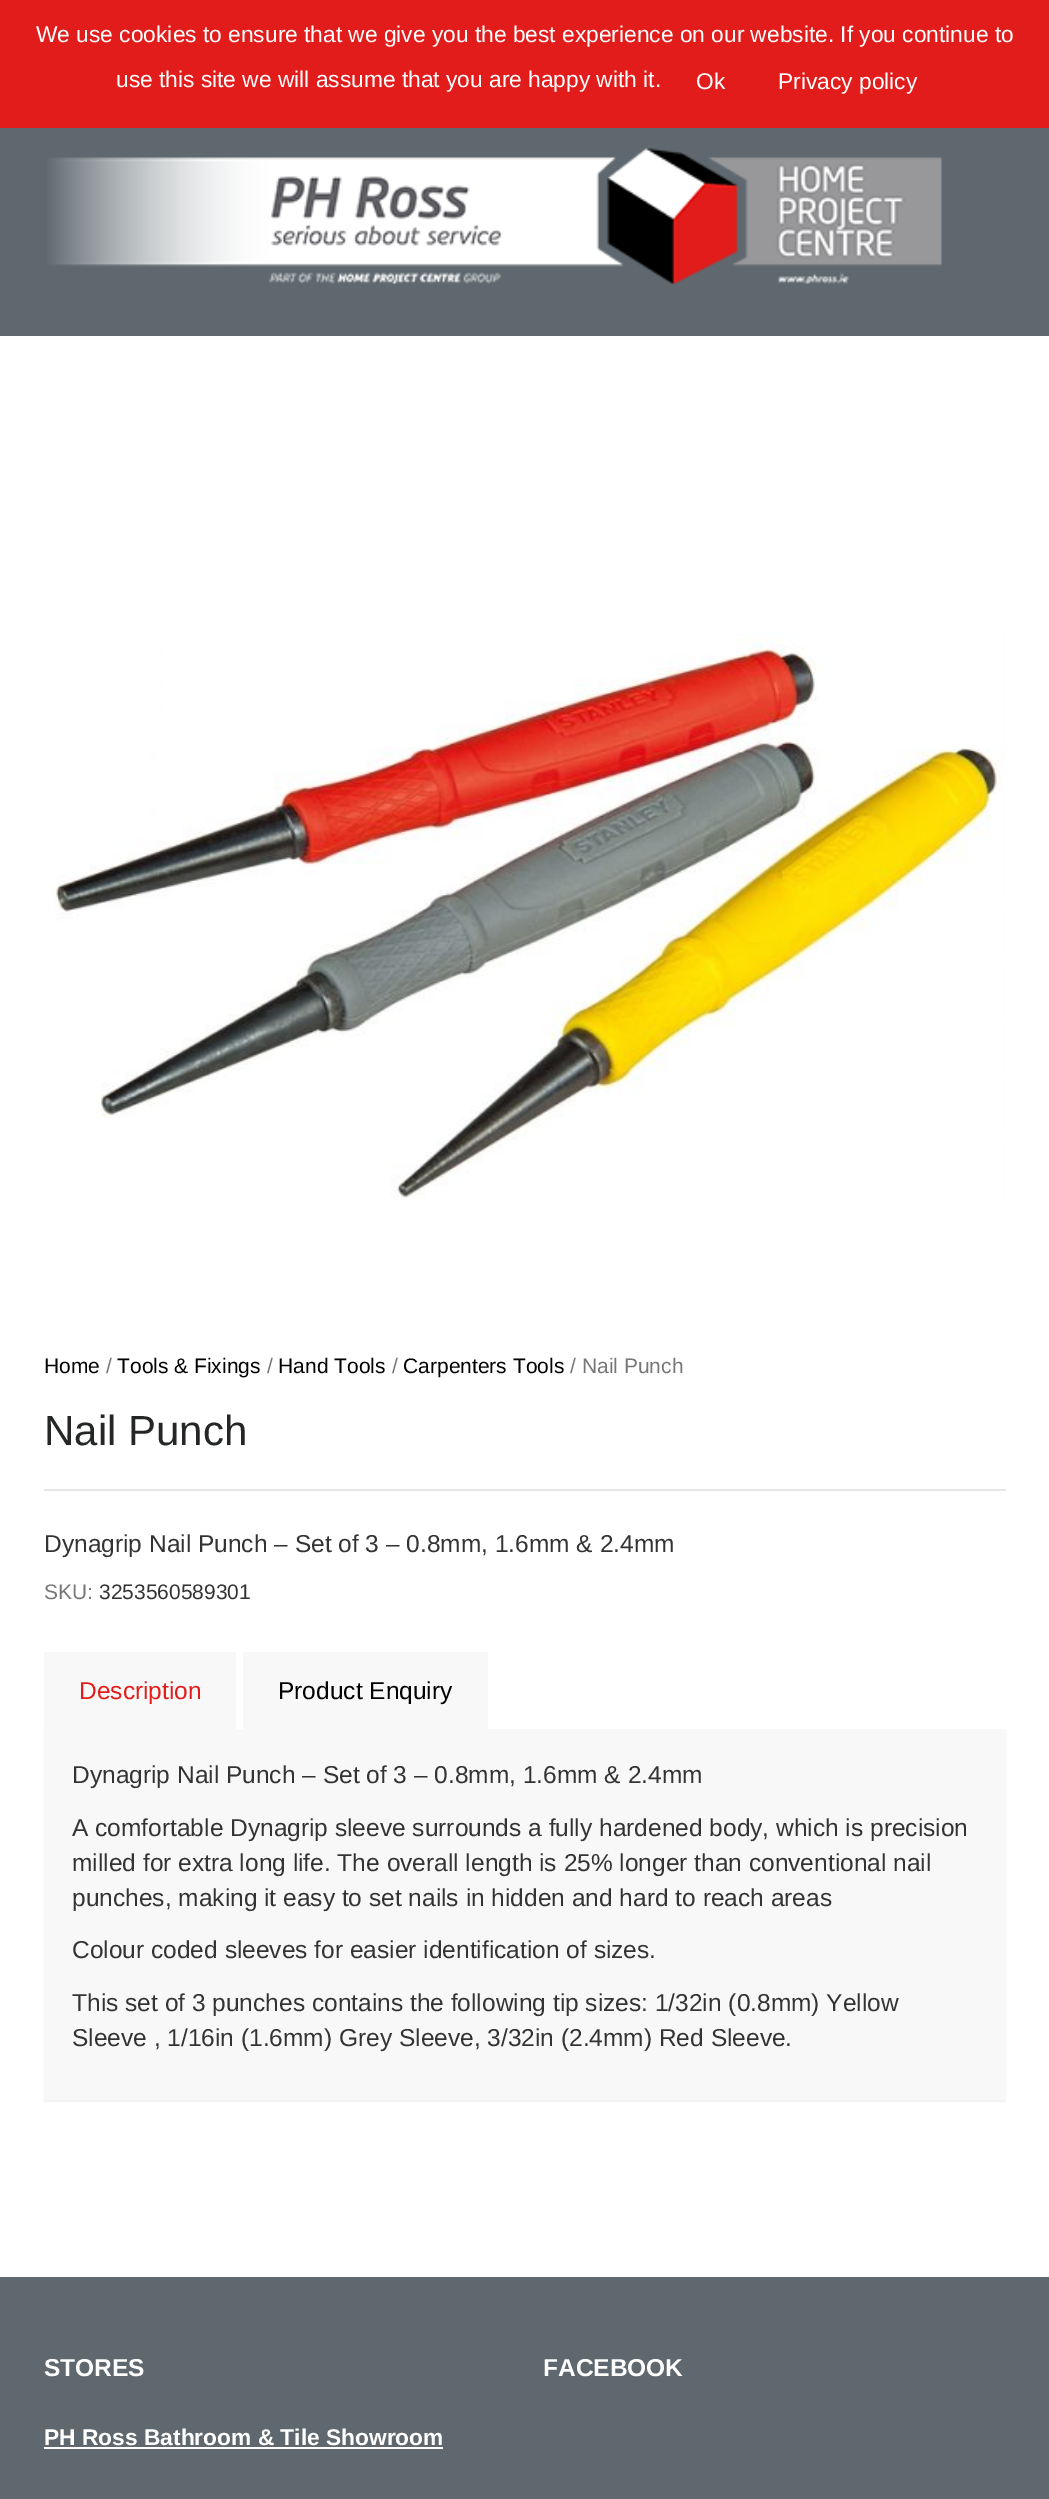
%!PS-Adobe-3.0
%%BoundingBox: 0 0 1049 2499
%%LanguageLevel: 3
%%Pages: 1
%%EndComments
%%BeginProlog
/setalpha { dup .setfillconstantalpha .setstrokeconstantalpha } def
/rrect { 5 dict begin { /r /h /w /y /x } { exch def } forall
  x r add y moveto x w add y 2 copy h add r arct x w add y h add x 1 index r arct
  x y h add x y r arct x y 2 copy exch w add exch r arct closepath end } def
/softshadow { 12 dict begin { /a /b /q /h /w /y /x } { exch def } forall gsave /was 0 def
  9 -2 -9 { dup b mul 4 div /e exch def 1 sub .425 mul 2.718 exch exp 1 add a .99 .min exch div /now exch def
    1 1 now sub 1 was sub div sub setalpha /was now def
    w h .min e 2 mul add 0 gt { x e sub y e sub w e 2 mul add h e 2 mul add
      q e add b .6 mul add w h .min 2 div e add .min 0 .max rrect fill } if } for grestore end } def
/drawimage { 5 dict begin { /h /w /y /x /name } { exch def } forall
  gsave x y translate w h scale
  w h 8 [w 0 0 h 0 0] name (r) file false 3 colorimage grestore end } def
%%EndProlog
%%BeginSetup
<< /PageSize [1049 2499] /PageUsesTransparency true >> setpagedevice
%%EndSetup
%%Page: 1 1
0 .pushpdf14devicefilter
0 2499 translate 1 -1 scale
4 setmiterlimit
1 setgray
0 0 1049 2499 rectfill
0.882 0.11 0.102 setrgbcolor
0 0 1049 128 rectfill
0.369 0.408 0.431 setrgbcolor
0 128 1049 208 rectfill
(images/1.raw) 47 148 895 136 drawimage
(images/2.raw) 52 633 953 566 drawimage
0.91 0.898 0.898 setrgbcolor
44 1489 962 2 rectfill
0 setgray
44 1731 962 371 0 1 0.05 softshadow
0.973 setgray
44 1652 192 77 rectfill
243 1652 245 77 rectfill
44 1729 962 371 rectfill
0.369 0.408 0.431 setrgbcolor
0 2277 1049 222 rectfill
1 setgray
44 2447 399 2 rectfill
/LiberationSans-Regular [22.75 0 0 -22.75 0 0] selectfont
36 42 moveto (We use cookies to ensure that we give you the best experience on our website. If you continue to) show
116 87 moveto (use this site we will assume that you are happy with it.) show
696 89 moveto (Ok) show
778 89 moveto (Privacy policy) show
/LiberationSans-Regular [21 0 0 -21 0 0] selectfont
0 setgray
44 1373 moveto (Home) show
0.467 setgray
106 1373 moveto (/) show
0 setgray
117 1373 moveto (Tools & Fixings) show
0.467 setgray
267 1373 moveto (/) show
0 setgray
278 1373 moveto (Hand Tools) show
0.467 setgray
392 1373 moveto (/) show
0 setgray
403 1373 moveto (Carpenters Tools) show
0.467 setgray
570 1373 moveto (/ Nail Punch) show
/LiberationSans-Regular [42 0 0 -42 0 0] selectfont
0.145 0.153 0.153 setrgbcolor
44 1445 moveto (Nail Punch) show
/LiberationSans-Regular [24.5 0 0 -24.5 0 0] selectfont
0.2 setgray
44 1552 moveto (Dynagrip Nail Punch – Set of 3 – 0.8mm, 1.6mm & 2.4mm) show
/LiberationSans-Regular [21 0 0 -21 0 0] selectfont
0.467 setgray
44 1599 moveto (SKU:) show
0.2 setgray
99 1599 moveto (3253560589301) show
/LiberationSans-Regular [24.5 0 0 -24.5 0 0] selectfont
0.882 0.11 0.102 setrgbcolor
79 1699 moveto (Description) show
0 setgray
278 1699 moveto (Product Enquiry) show
0.2 setgray
72 1783 moveto (Dynagrip Nail Punch – Set of 3 – 0.8mm, 1.6mm & 2.4mm) show
72 1836 moveto (A comfortable Dynagrip sleeve surrounds a fully hardened body, which is precision) show
72 1871 moveto (milled for extra long life. The overall length is 25% longer than conventional nail) show
72 1906 moveto (punches, making it easy to set nails in hidden and hard to reach areas) show
72 1958 moveto (Colour coded sleeves for easier identification of sizes.) show
72 2011 moveto (This set of 3 punches contains the following tip sizes: 1/32in \(0.8mm\) Yellow) show
72 2046 moveto (Sleeve , 1/16in \(1.6mm\) Grey Sleeve, 3/32in \(2.4mm\) Red Sleeve.) show
/LiberationSans-Bold [24.5 0 0 -24.5 0 0] selectfont
1 setgray
44 2376 moveto (STORES) show
/LiberationSans-Bold [22.75 0 0 -22.75 0 0] selectfont
44 2445 moveto (PH Ross Bathroom & Tile Showroom) show
/LiberationSans-Bold [24.5 0 0 -24.5 0 0] selectfont
543 2376 moveto (FACEBOOK) show
.poppdf14devicefilter showpage
%%EOF
